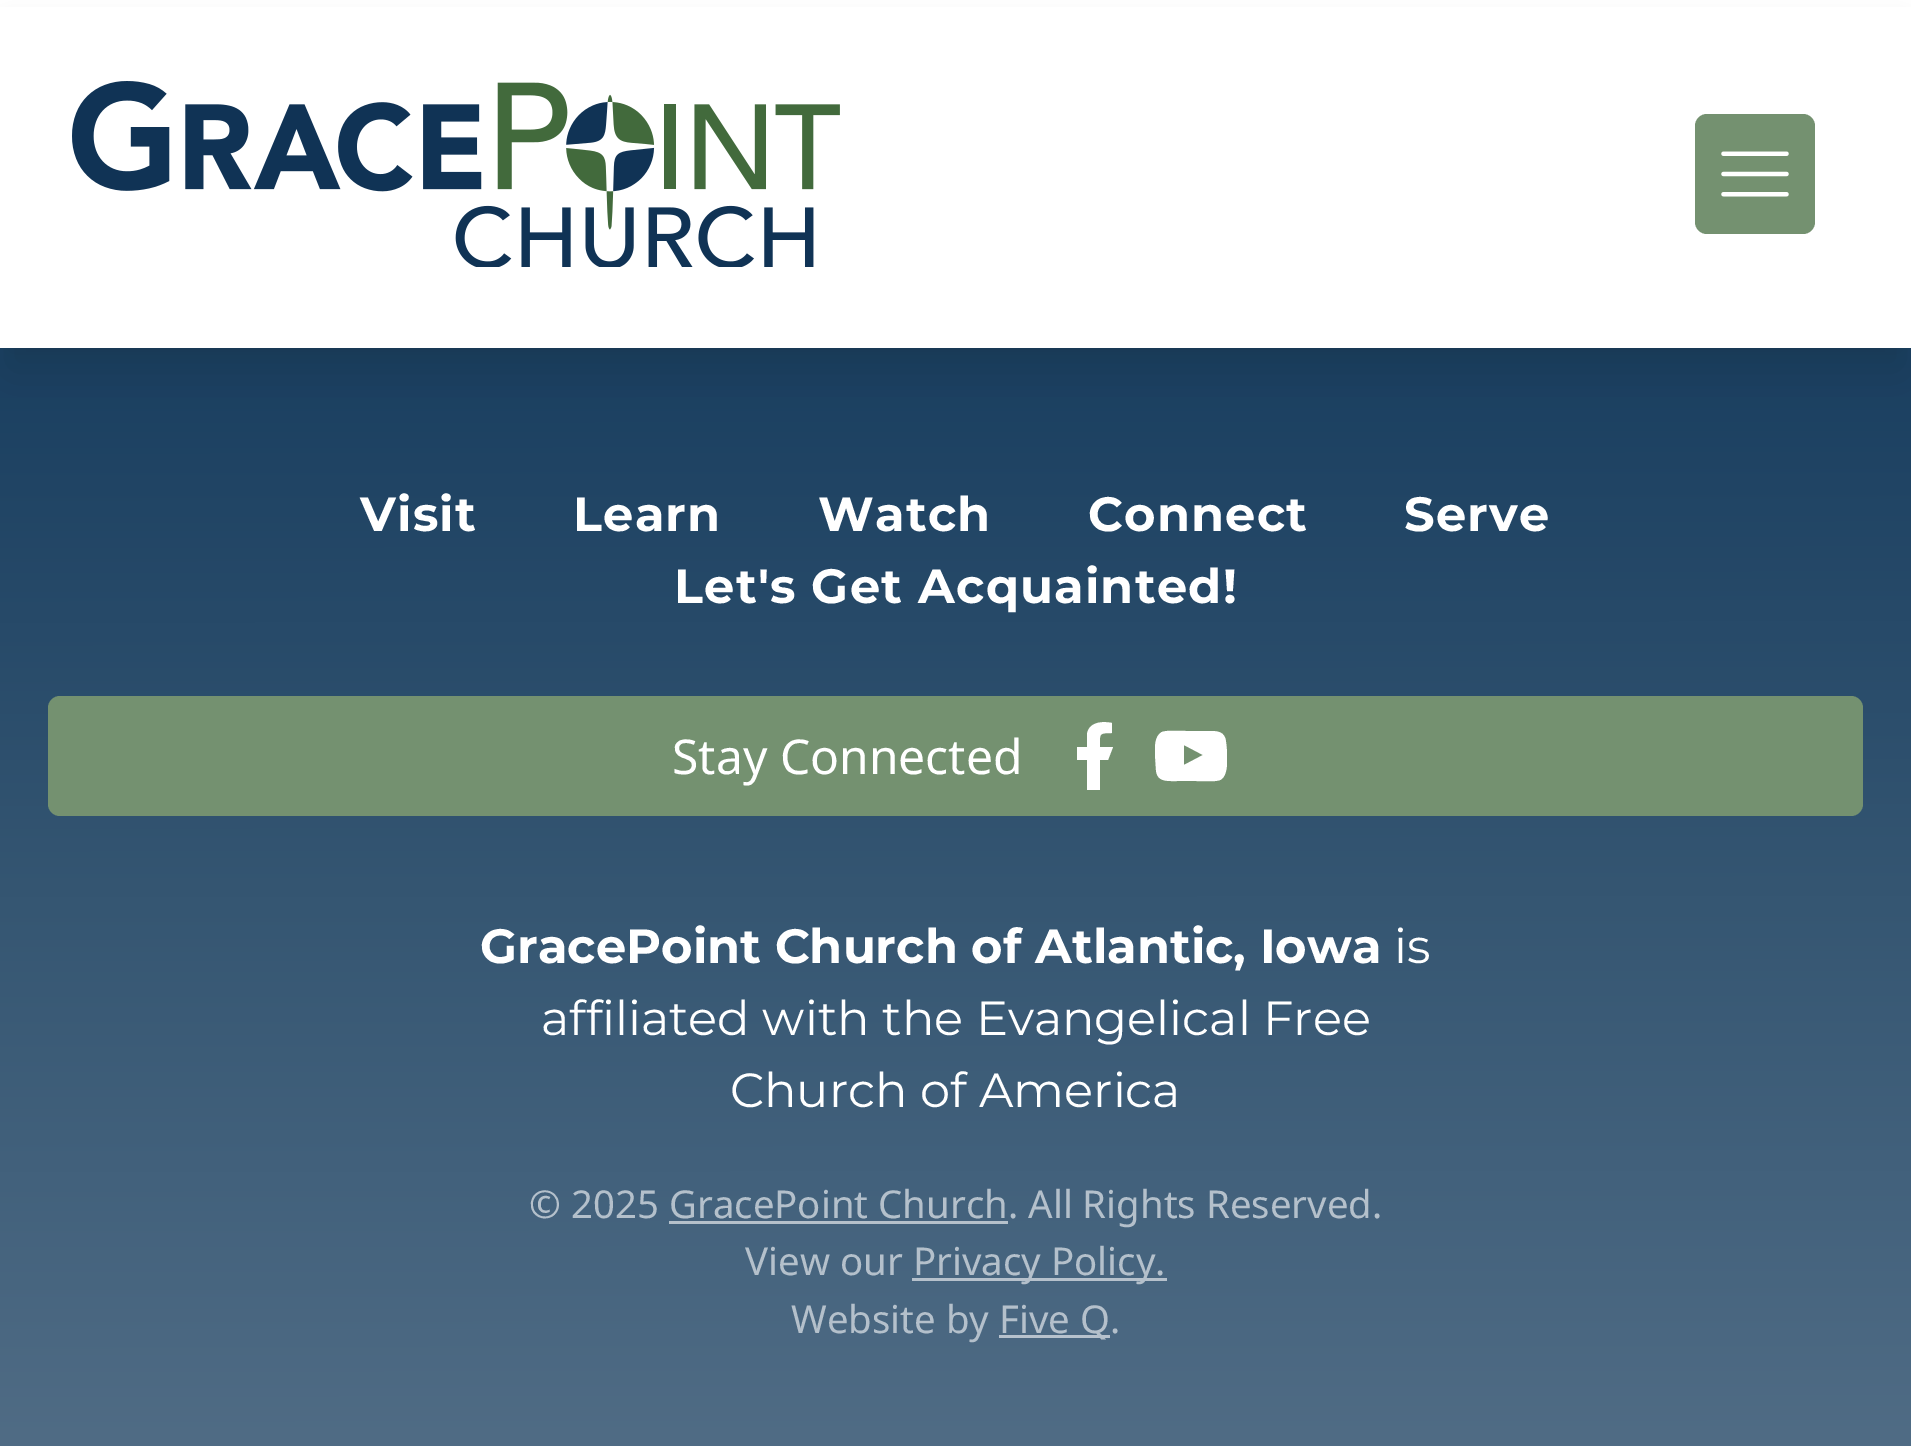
%!PS-Adobe-3.0
%%BoundingBox: 0 0 1911 1446
%%LanguageLevel: 3
%%Pages: 1
%%EndComments
%%BeginProlog
/setalpha { dup .setfillconstantalpha .setstrokeconstantalpha } def
/rrect { 5 dict begin { /r /h /w /y /x } { exch def } forall
  x r add y moveto x w add y 2 copy h add r arct x w add y h add x 1 index r arct
  x y h add x y r arct x y 2 copy exch w add exch r arct closepath end } def
/softshadow { 12 dict begin { /a /b /q /h /w /y /x } { exch def } forall gsave /was 0 def
  9 -2 -9 { dup b mul 4 div /e exch def 1 sub .425 mul 2.718 exch exp 1 add a .99 .min exch div /now exch def
    1 1 now sub 1 was sub div sub setalpha /was now def
    w h .min e 2 mul add 0 gt { x e sub y e sub w e 2 mul add h e 2 mul add
      q e add b .6 mul add w h .min 2 div e add .min 0 .max rrect fill } if } for grestore end } def
/drawimage { 5 dict begin { /h /w /y /x /name } { exch def } forall
  gsave x y translate w h scale
  w h 8 [w 0 0 h 0 0] name (r) file false 3 colorimage grestore end } def
%%EndProlog
%%BeginSetup
<< /PageSize [1911 1446] /PageUsesTransparency true >> setpagedevice
%%EndSetup
%%Page: 1 1
0 .pushpdf14devicefilter
0 1446 translate 1 -1 scale
4 setmiterlimit
1 setgray
0 0 1911 1446 rectfill
gsave newpath 0 348 moveto 1911 348 lineto 1911 1446 lineto 0 1446 lineto closepath clip newpath
<< /ShadingType 2 /ColorSpace /DeviceRGB /Coords [955 27 956 1446] /Extend [true true] /Function << /FunctionType 2 /Domain [0 1] /C0 [0.039 0.196 0.333] /C1 [0.314 0.424 0.522] /N 1 >> >> shfill grestore
0 setgray
12 24 1887 324 0 9 0.1 softshadow
9 39 1893 330 0 22.5 0.1 softshadow
1 setgray
0 7 1911 341 rectfill
(images/1.raw) 72 81 768 186 drawimage
0.455 0.569 0.439 setrgbcolor
1695 114 120 120 12 rrect fill
(images/2.raw) 1721 151 68 46 drawimage
48 696 1815 120 12 rrect fill
1 setgray
newpath 1087 790 moveto 1087 760 lineto 1077 760 lineto 1077 747 lineto 1087 747 lineto 1087 734 lineto 1089 722 1102 721 1112 723 curveto 1112 733 lineto 1098 733 1100 734 1100 747 curveto 1113 747 lineto 1108 760 lineto 1100 760 lineto 1100 790 lineto closepath fill
gsave
1155 720 72 72 rectclip
newpath 1226 742 moveto 1225 731 1217 731 1208 731 curveto 1186 731 lineto 1180 731 1167 730 1162 732 curveto 1154 736 1155 748 1155 755 curveto 1156 770 lineto 1157 782 1167 781 1177 781 curveto 1196 781 lineto 1202 781 1215 782 1220 780 curveto 1230 776 1227 750 1226 742 curveto closepath 1184 765 moveto 1184 745 lineto 1203 755 lineto closepath fill
grestore
0.714 0.757 0.8 setrgbcolor
912 1278 255 3 rectfill
0.718 0.761 0.804 setrgbcolor
999 1335 111 3 rectfill
/Montserrat-Bold [48 0 0 -48 0 0] selectfont
1 setgray
360 531 moveto 1.2 0 (Visit) ashow
573 531 moveto 1.2 0 (Learn) ashow
818 531 moveto 1.2 0 (Watch) ashow
1088 531 moveto 1.2 0 (Connect) ashow
1404 531 moveto 1.2 0 (Serve) ashow
674 603 moveto 1.2 0 (Let's Get Acquainted!) ashow
/NotoSans-Regular [48 0 0 -48 0 0] selectfont
672 774 moveto (Stay Connected) show
/Montserrat-Bold [48 0 0 -48 0 0] selectfont
480 963 moveto (GracePoint Church of Atlantic, Iowa) show
/Montserrat-Regular [48 0 0 -48 0 0] selectfont
1394 963 moveto (is) show
541 1035 moveto (affiliated with the Evangelical Free) show
730 1107 moveto (Church of America) show
/NotoSans-Regular [38.4 0 0 -38.4 0 0] selectfont
0.706 0.753 0.796 setrgbcolor
529 1218 moveto (© 2025 GracePoint Church. All Rights Reserved.) show
0.71 0.757 0.796 setrgbcolor
669 1221 339 3 rectfill
0.706 0.753 0.796 setrgbcolor
745 1275 moveto (View our) show
913 1275 moveto (Privacy Policy.) show
791 1333 moveto (Website by) show
999 1333 moveto (Five Q.) show
.poppdf14devicefilter showpage
%%EOF
